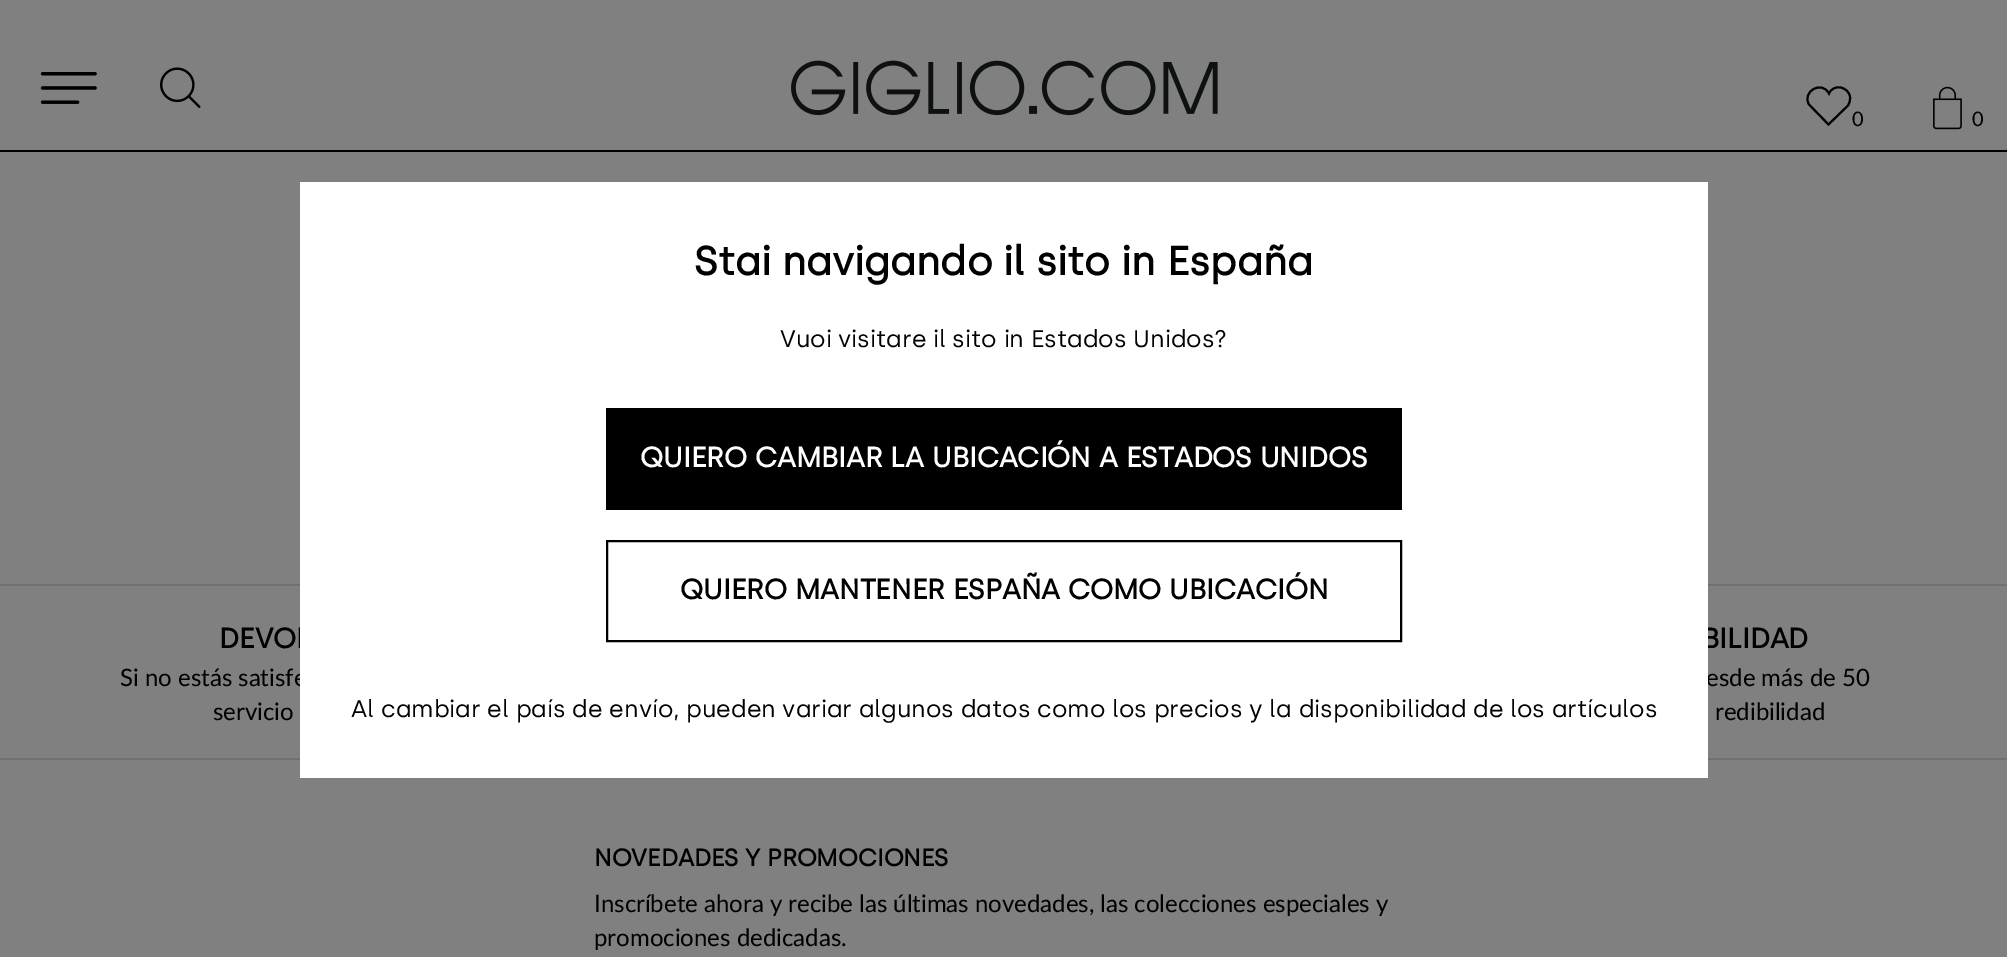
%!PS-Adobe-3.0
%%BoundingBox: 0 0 2007 957
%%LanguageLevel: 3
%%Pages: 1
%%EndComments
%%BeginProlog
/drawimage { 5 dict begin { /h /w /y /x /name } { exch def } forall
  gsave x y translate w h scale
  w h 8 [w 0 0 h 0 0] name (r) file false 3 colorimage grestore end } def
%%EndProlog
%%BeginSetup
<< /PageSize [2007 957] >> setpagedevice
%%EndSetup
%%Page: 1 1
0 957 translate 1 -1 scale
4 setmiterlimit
0.502 setgray
0 0 2007 957 rectfill
(images/1.raw) 40 72 57 32 drawimage
(images/2.raw) 160 67 41 41 drawimage
(images/3.raw) 791 60 427 56 drawimage
0 setgray
2 setlinewidth
1 setlinecap
newpath 1840.5 87.5 moveto 1845.5 88.5 1849.5 92 1850 97 curveto 1850.5 100 1849.5 103 1848 105.5 curveto 1828.5 124.5 lineto 1809 104.5 lineto 1801.5 92 1821.5 79.5 1829 93.5 curveto 1831 89 1835.5 86.5 1840.5 87.5 curveto closepath stroke
(images/4.raw) 1933 86 29 44 drawimage
0 150 2007 2 rectfill
0.443 setgray
0 584 2007 2 rectfill
0 758 2007 2 rectfill
/Lato-Regular [20 0 0 -20 0 0] selectfont
0 setgray
1852 126 moveto (0) show
1972 126 moveto (0) show
/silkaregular-Bold [28 0 0 -28 0 0] selectfont
219 648 moveto (DEVOL) show
/Lato-Regular [24 0 0 -24 0 0] selectfont
120 686 moveto (Si no estás satisfe) show
213 720 moveto (servicio) show
/silkaregular-Bold [28 0 0 -28 0 0] selectfont
1702 648 moveto (BILIDAD) show
/Lato-Regular [24 0 0 -24 0 0] selectfont
1706 686 moveto (esde más de 50) show
1 setgray
300 182 1408 596 rectfill
/silkaregular-Regular [24 0 0 -24 0 0] selectfont
0 setgray
351 717 moveto (Al cambiar el país de envío, pueden variar algunos datos como los precios y la disponibilidad de los artículos) show
0 setlinecap
607 541 794 100 rectstroke
/silkaregular-Bold [28 0 0 -28 0 0] selectfont
680 599 moveto (QUIERO MANTENER ESPAÑA COMO UBICACIÓN) show
606 408 796 102 rectfill
1 setgray
640 467 moveto (QUIERO CAMBIAR LA UBICACIÓN A ESTADOS UNIDOS) show
/silkaregular-Regular [24 0 0 -24 0 0] selectfont
0 setgray
780 347 moveto (Vuoi visitare il sito in Estados Unidos?) show
/silkaregular-Bold [40 0 0 -40 0 0] selectfont
694 275 moveto (Stai navigando il sito in España) show
/Lato-Regular [24 0 0 -24 0 0] selectfont
1715 720 moveto (redibilidad) show
/silkaregular-Bold [24 0 0 -24 0 0] selectfont
594 866 moveto (NOVEDADES Y PROMOCIONES) show
/Lato-Regular [24 0 0 -24 0 0] selectfont
594 912 moveto (Inscríbete ahora y recibe las últimas novedades, las colecciones especiales y) show
594 946 moveto (promociones dedicadas.) show
showpage
%%EOF
